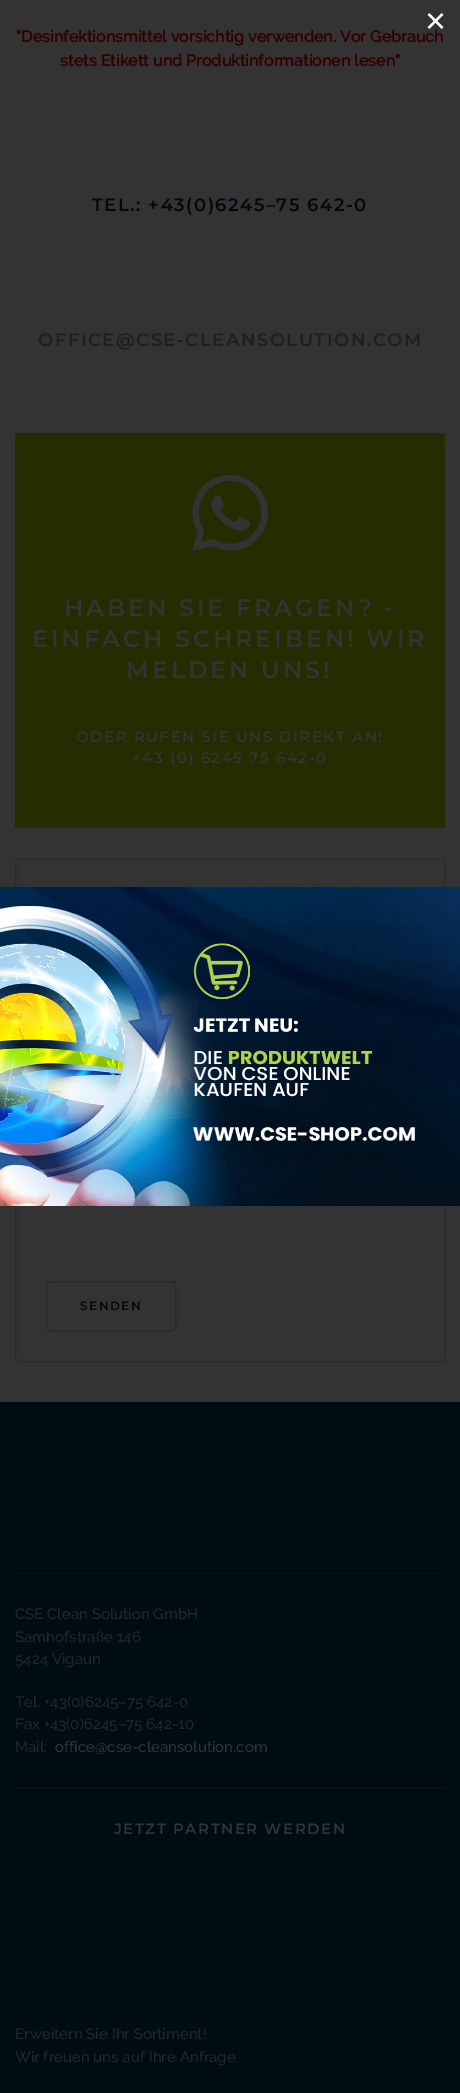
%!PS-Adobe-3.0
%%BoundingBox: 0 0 460 2093
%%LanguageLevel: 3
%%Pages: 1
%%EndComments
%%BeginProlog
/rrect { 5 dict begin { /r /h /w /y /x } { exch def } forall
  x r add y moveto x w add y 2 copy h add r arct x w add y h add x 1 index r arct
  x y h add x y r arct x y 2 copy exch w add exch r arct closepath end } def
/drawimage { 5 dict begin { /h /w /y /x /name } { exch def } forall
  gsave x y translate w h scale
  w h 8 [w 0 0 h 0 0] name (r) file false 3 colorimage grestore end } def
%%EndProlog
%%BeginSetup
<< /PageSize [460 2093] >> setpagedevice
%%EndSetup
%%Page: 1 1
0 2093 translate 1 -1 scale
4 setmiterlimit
0.2 setgray
0 0 460 2093 rectfill
0.165 0.165 0.173 setrgbcolor
15.5 858.5 429 503 3.5 rrect stroke
(images/1.raw) 0 887 460 319 drawimage
0.149 0.169 0 setrgbcolor
15 433 430 395 rectfill
(images/2.raw) 192 475 76 76 drawimage
0.165 0.165 0.173 setrgbcolor
46.5 1281.5 129 49 3.5 rrect stroke
0 0.047 0.078 setrgbcolor
0 1402 460 691 rectfill
0.039 0.078 0.102 setrgbcolor
15 1573 430 1 rectfill
15 1788 430 1 rectfill
/LiberationSans-Regular [36 0 0 -36 0 0] selectfont
1 setgray
425 33 moveto (×) show
/Raleway-Bold [16 0 0 -16 0 0] selectfont
0.2 0 0 setrgbcolor
16 42 moveto ("Desinfektionsmittel vorsichtig verwenden. Vor Gebrauch) show
60 66 moveto (stets Etikett und Produktinformationen lesen") show
/Montserrat-SemiBold [18 0 0 -18 0 0] selectfont
0.031 0.027 0.059 setrgbcolor
92 211 moveto 1.5 0 (TEL.: +43\(0\)6245–75 642-0) ashow
0.102 0.125 0.141 setrgbcolor
38 346 moveto 1.5 0 (OFFICE@CSE-CLEANSOLUTION.COM) ashow
/Montserrat-SemiBold [23.75 0 0 -23.75 0 0] selectfont
0.2 setgray
64 616 moveto 3 0 (HABEN SIE FRAGEN? -) ashow
32 647 moveto 3 0 (EINFACH SCHREIBEN! WIR) ashow
126 678 moveto 3 0 (MELDEN UNS!) ashow
/Montserrat-SemiBold [15 0 0 -15 0 0] selectfont
76 742 moveto 1.5 0 (ODER RUFEN SIE UNS DIREKT AN!) ashow
132 763 moveto 1.5 0 (+43 \(0\) 6245 75 642-0) ashow
/Montserrat-SemiBold [12 0 0 -12 0 0] selectfont
0.031 0.027 0.059 setrgbcolor
80 1310 moveto 1.5 0 (SENDEN) ashow
/Raleway-Medium [15 0 0 -15 0 0] selectfont
0.141 0.153 0.165 setrgbcolor
15 1619 moveto (CSE Clean Solution GmbH) show
15 1642 moveto (Samhofstraße 146) show
15 1664 moveto (5424 Vigaun) show
15 1707 moveto (Tel. +43\(0\)6245–75 642-0) show
15 1729 moveto (Fax +43\(0\)6245–75 642-10) show
15 1752 moveto (Mail:) show
0.2 setgray
55 1752 moveto (office@cse-cleansolution.com) show
/Montserrat-SemiBold [15 0 0 -15 0 0] selectfont
114 1834 moveto 1.5 0 (JETZT PARTNER WERDEN) ashow
/Raleway-Medium [15 0 0 -15 0 0] selectfont
0.141 0.153 0.165 setrgbcolor
15 2039 moveto (Erweitern Sie Ihr Sortiment!) show
15 2062 moveto (Wir freuen uns auf Ihre Anfrage) show
showpage
%%EOF
